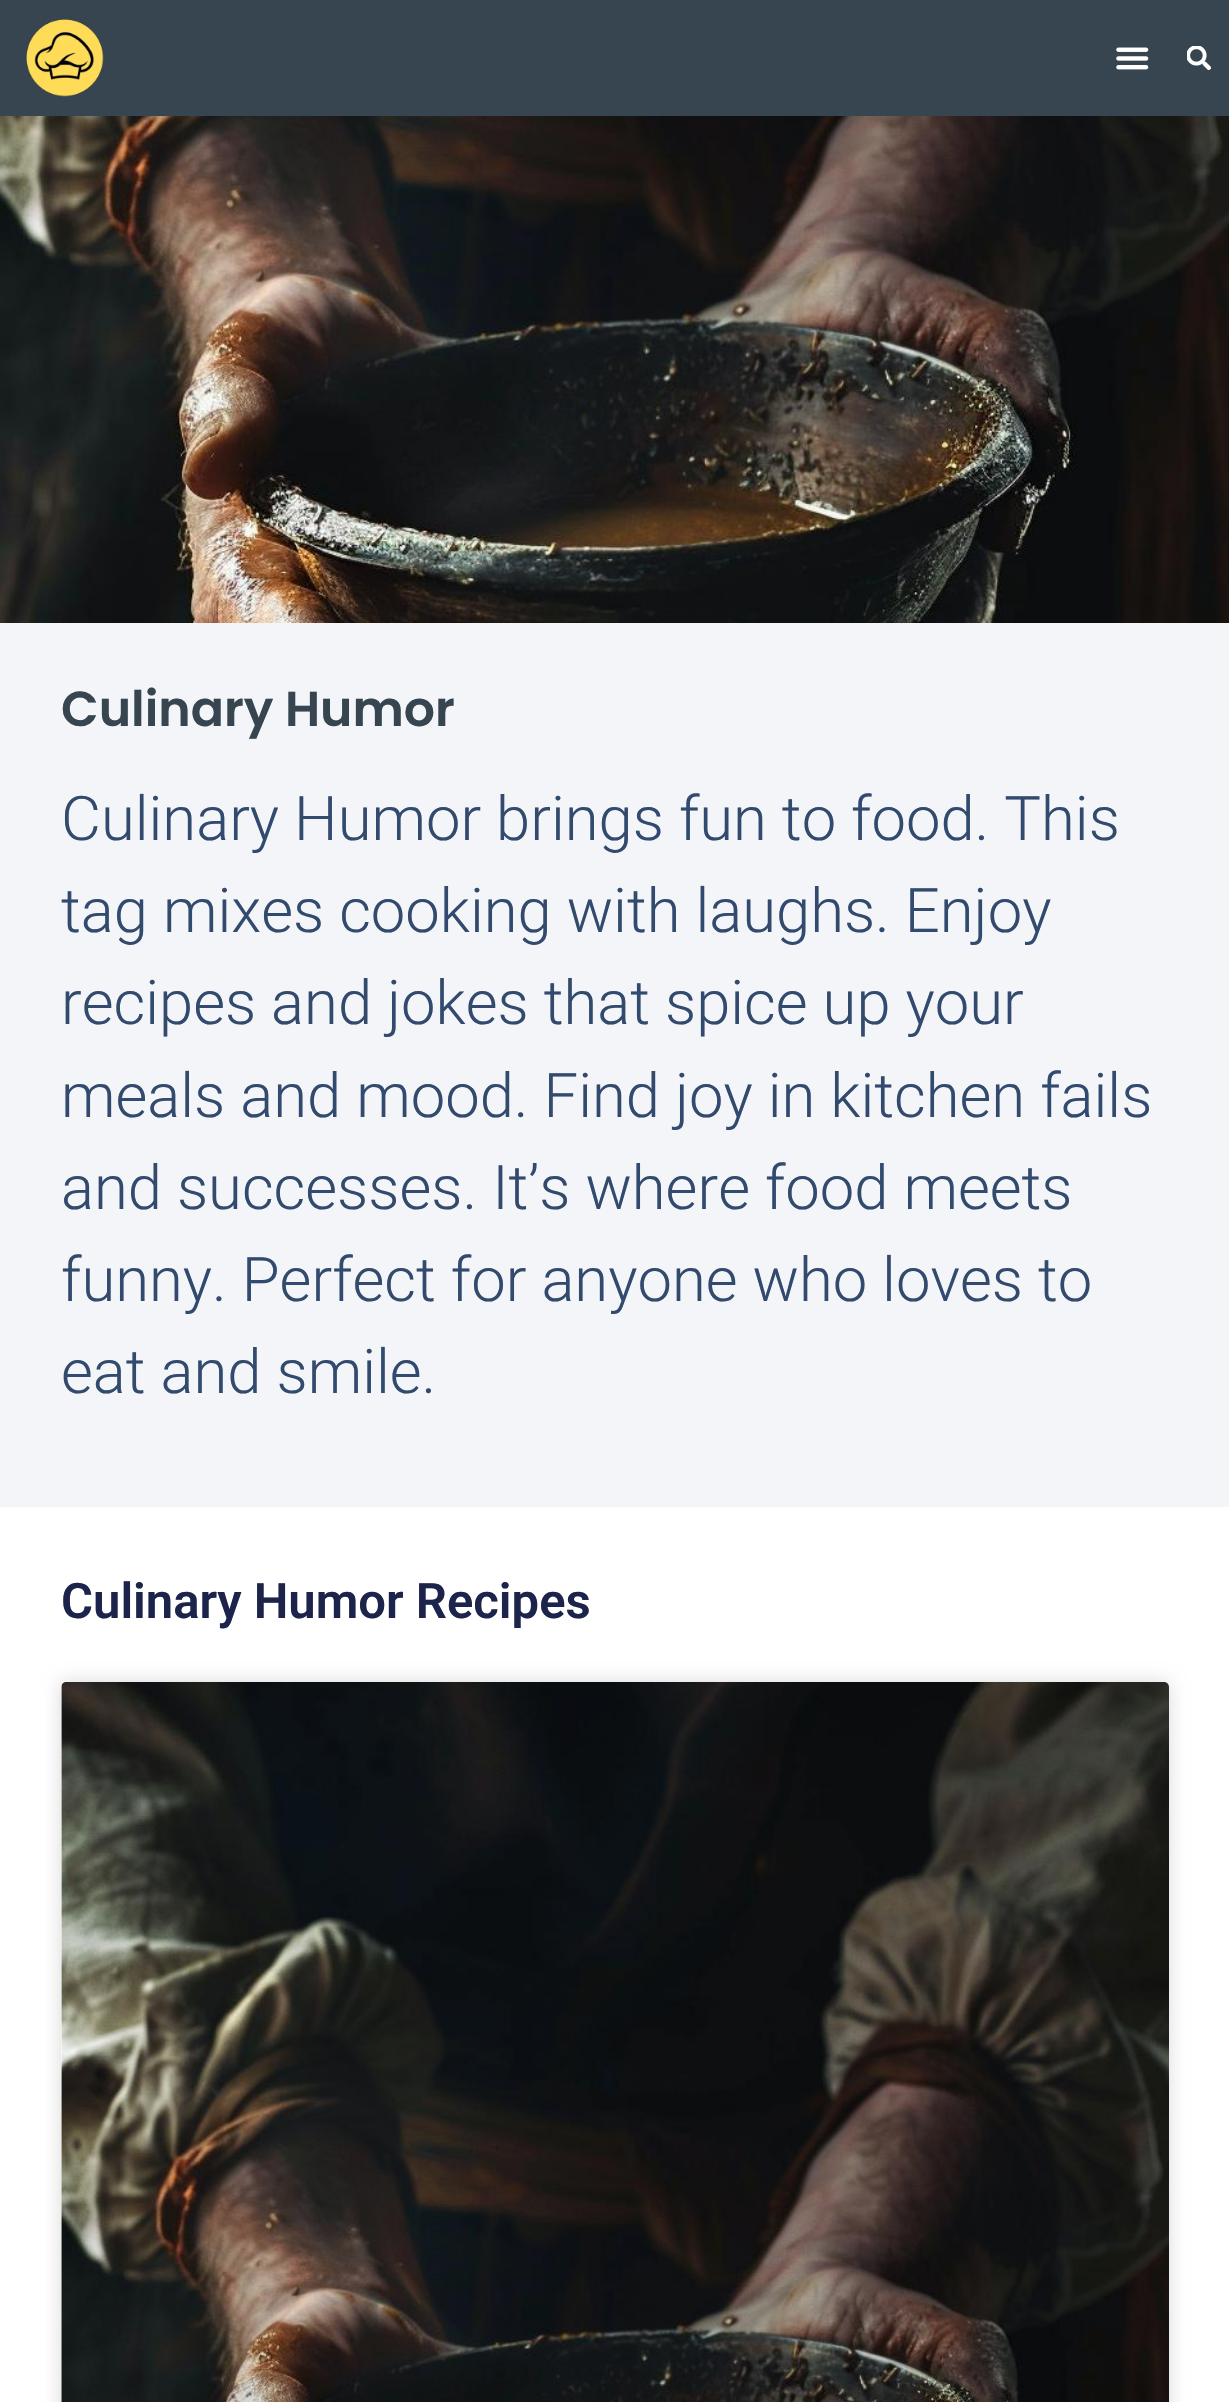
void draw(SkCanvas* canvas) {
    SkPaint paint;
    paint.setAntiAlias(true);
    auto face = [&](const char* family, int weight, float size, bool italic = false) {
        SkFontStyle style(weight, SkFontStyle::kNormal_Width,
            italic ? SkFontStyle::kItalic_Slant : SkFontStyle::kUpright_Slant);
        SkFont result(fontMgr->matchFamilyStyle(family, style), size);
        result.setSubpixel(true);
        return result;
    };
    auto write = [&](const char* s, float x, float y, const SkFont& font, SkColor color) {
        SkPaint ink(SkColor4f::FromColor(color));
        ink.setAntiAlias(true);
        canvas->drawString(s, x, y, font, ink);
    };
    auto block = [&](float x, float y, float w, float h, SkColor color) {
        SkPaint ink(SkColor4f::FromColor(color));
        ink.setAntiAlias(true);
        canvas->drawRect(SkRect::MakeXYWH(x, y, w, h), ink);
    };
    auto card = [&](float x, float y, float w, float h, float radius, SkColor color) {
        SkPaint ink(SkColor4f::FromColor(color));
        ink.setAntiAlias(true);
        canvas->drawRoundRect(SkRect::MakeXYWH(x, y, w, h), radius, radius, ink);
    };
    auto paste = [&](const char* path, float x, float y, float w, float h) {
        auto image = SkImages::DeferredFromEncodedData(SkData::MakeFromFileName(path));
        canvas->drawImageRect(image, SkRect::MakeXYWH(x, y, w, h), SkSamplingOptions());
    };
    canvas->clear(SK_ColorWHITE);
    block(0, 0, 1229, 116, SkColorSetRGB(54, 69, 79));
    paste("pic1.png", 26, 19, 78, 78);
    paste("pic2.png", 1116, 47, 33, 23);
    paste("pic3.png", 1187, 46, 24, 24);
    paste("pic4.png", 0, 116, 1229, 507);
    block(0, 623, 1229, 884, SkColorSetRGB(243, 245, 248));
    auto kFont1 = face("Poppins", 600, 49);
    write("Culinary Humor", 61, 726, kFont1, SkColorSetRGB(54, 69, 79));
    auto kFont2 = face("Roboto", 300, 61.5f);
    write("Culinary Humor brings fun to food. This", 61, 840, kFont2, SkColorSetRGB(50, 74, 109));
    write("tag mixes cooking with laughs. Enjoy", 61, 932, kFont2, SkColorSetRGB(50, 74, 109));
    write("recipes and jokes that spice up your", 61, 1024, kFont2, SkColorSetRGB(50, 74, 109));
    write("meals and mood. Find joy in kitchen fails", 61, 1117, kFont2, SkColorSetRGB(50, 74, 109));
    write("and successes. It’s where food meets", 61, 1209, kFont2, SkColorSetRGB(50, 74, 109));
    write("funny. Perfect for anyone who loves to", 61, 1301, kFont2, SkColorSetRGB(50, 74, 109));
    write("eat and smile.", 61, 1393, kFont2, SkColorSetRGB(50, 74, 109));
    auto kFont3 = face("Roboto", 600, 49);
    write("Culinary Humor Recipes", 61, 1618, kFont3, SkColorSetRGB(28, 36, 75));
    paint.setColor(SkColorSetARGB(38, 0, 0, 0));
    paint.setMaskFilter(SkMaskFilter::MakeBlur(kNormal_SkBlurStyle, 9));
    canvas->drawRoundRect(SkRect::MakeXYWH(61, 1682, 1108, 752), 5, 5, paint);
    paint.setMaskFilter(nullptr);
    card(61, 1682, 1108, 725, 5, SK_ColorWHITE);
    paste("pic5.png", 61, 1682, 1108, 720);
    {
        const SkColor colors[] = {SkColorSetARGB(89, 0, 0, 0), SkColorSetARGB(0, 0, 0, 0)};
        const float stops[] = {0, 0.75f};
        const SkPoint ends[] = {{615, 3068}, {615, 1682}};
        paint.setShader(SkGradientShader::MakeLinear(ends, colors, stops, 2, SkTileMode::kClamp));
        paint.setAlpha(255);
    }
    canvas->drawRect(SkRect::MakeXYWH(61, 2093, 1108, 309), paint);
}
